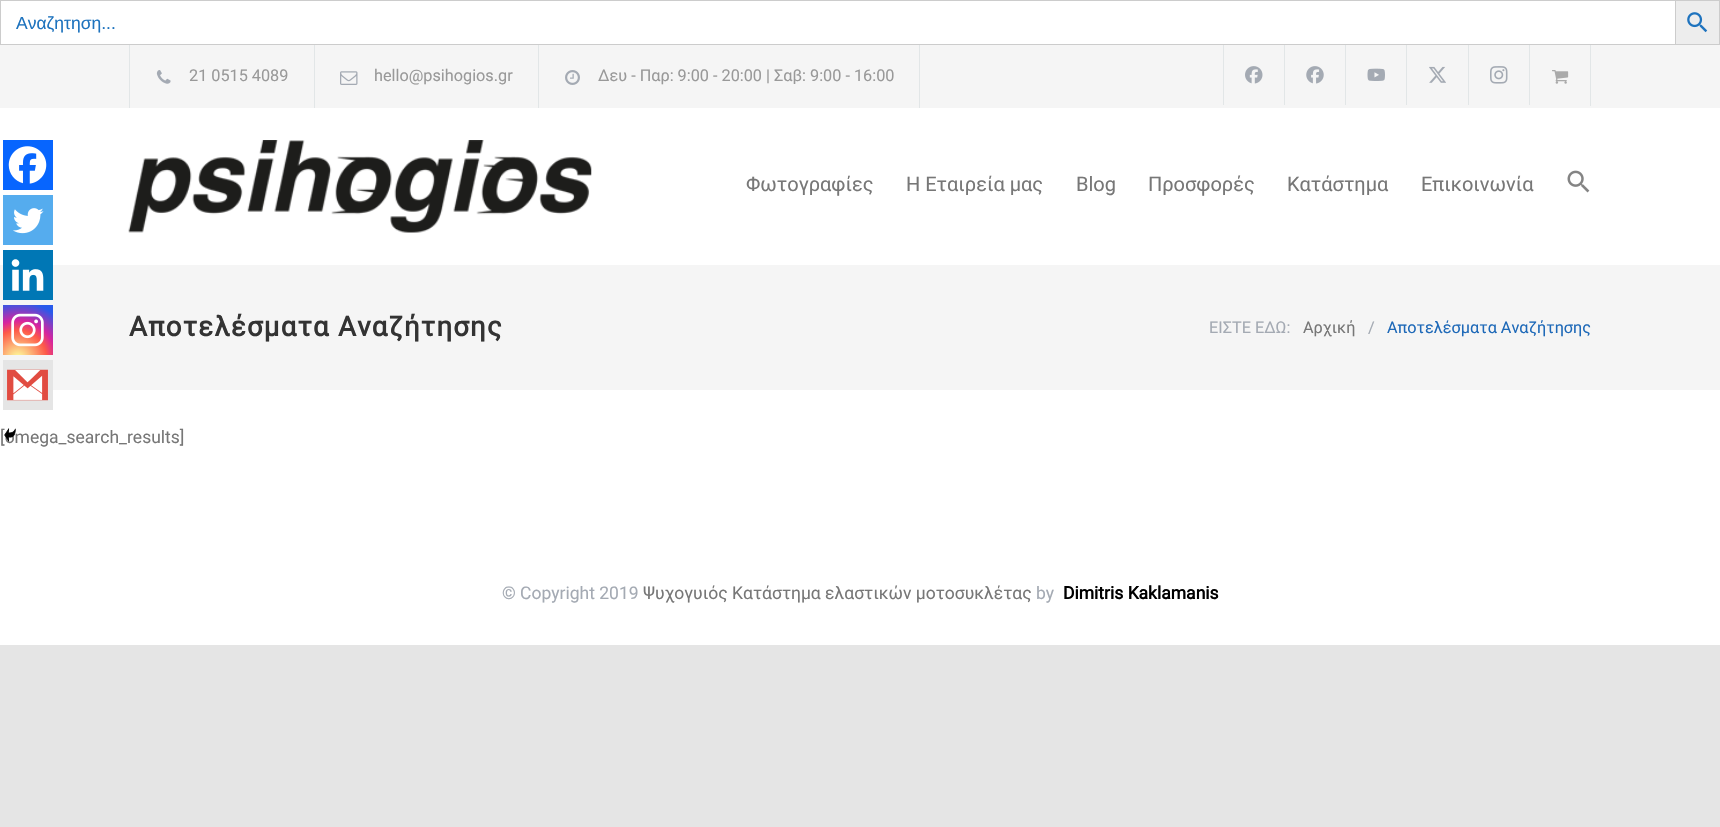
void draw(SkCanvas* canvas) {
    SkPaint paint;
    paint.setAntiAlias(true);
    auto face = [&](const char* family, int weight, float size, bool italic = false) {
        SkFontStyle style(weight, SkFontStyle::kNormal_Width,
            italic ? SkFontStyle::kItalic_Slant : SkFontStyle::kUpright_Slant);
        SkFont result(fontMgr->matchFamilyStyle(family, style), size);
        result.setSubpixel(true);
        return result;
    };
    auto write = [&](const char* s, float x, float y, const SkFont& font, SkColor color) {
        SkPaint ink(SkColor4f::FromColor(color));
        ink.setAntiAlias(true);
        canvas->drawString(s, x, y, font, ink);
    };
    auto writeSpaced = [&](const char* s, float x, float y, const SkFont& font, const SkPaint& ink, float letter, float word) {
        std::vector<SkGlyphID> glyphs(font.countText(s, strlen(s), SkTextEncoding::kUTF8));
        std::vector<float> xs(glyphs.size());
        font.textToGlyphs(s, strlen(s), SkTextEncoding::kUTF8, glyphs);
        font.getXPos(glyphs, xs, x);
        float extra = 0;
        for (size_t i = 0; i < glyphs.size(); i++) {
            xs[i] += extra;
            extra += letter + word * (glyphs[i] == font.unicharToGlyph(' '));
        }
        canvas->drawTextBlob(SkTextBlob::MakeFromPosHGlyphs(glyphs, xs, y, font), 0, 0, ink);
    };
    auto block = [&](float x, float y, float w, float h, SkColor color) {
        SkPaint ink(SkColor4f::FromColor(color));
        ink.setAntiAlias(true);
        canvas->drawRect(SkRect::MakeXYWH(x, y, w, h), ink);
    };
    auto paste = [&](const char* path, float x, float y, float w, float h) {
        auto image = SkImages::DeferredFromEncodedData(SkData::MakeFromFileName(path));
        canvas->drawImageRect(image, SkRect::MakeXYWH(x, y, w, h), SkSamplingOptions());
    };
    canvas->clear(SkColorSetRGB(229, 229, 229));
    block(1, 1, 1674, 43, SK_ColorWHITE);
    block(0, 0, 1675, 1, SkColorSetRGB(204, 204, 204));
    block(0, 44, 1675, 1, SkColorSetRGB(204, 204, 204));
    block(0, 0, 1, 45, SkColorSetRGB(204, 204, 204));
    auto kFont1 = face("Liberation Sans", 400, 17.5f);
    write("Αναζητηση...", 16, 29, kFont1, SkColorSetRGB(30, 115, 190));
    paint.setColor(SkColorSetRGB(237, 237, 237));
    canvas->drawRect(SkRect::MakeXYWH(1675.5f, 0.5f, 44, 44), paint);
    paint.setStyle(SkPaint::kStroke_Style);
    paint.setStrokeWidth(1);
    paint.setColor(SkColorSetRGB(204, 204, 204));
    canvas->drawRect(SkRect::MakeXYWH(1675.5f, 0.5f, 44, 44), paint);
    paste("pic1.png", 1687, 12, 21, 21);
    block(0, 108, 1720, 537, SK_ColorWHITE);
    block(0, 45, 1720, 63, SkColorSetRGB(245, 245, 245));
    block(314, 45, 1, 63, SkColorSetRGB(226, 230, 231));
    block(129, 45, 1, 63, SkColorSetRGB(226, 230, 231));
    paste("pic2.png", 156, 70, 15, 14);
    auto kFont2 = face("Roboto", 400, 16.25f);
    write("21 0515 4089", 189, 81, kFont2, SkColorSetRGB(153, 153, 153));
    block(538, 45, 1, 63, SkColorSetRGB(226, 230, 231));
    paste("pic3.png", 340, 71, 18, 14);
    write("hello@psihogios.gr", 374, 81, kFont2, SkColorSetRGB(153, 153, 153));
    block(919, 45, 1, 63, SkColorSetRGB(226, 230, 231));
    paste("pic4.png", 565, 70, 15, 15);
    write("Δευ - Παρ: 9:00 - 20:00 | Σαβ: 9:00 - 16:00", 598, 81, kFont2, SkColorSetRGB(153, 153, 153));
    block(1284, 45, 1, 60, SkColorSetRGB(226, 230, 231));
    block(1223, 45, 1, 60, SkColorSetRGB(226, 230, 231));
    paste("pic5.png", 1245, 66, 18, 18);
    block(1345, 45, 1, 60, SkColorSetRGB(226, 230, 231));
    paste("pic6.png", 1306, 66, 18, 18);
    block(1406, 45, 1, 60, SkColorSetRGB(226, 230, 231));
    paste("pic7.png", 1367, 68, 18, 13);
    block(1468, 45, 1, 60, SkColorSetRGB(226, 230, 231));
    paste("pic8.png", 1429, 66, 17, 17);
    block(1529, 45, 1, 60, SkColorSetRGB(226, 230, 231));
    paste("pic9.png", 1490, 66, 18, 18);
    block(1590, 45, 1, 61, SkColorSetRGB(226, 230, 231));
    paste("pic10.png", 1552, 70, 17, 14);
    paste("pic11.png", 128, 140, 464, 93);
    auto kFont3 = face("Roboto", 400, 20);
    write("Φωτογραφίες", 746, 191, kFont3, SkColorSetRGB(119, 119, 119));
    write("Η Εταιρεία μας", 906, 191, kFont3, SkColorSetRGB(119, 119, 119));
    write("Blog", 1076, 191, kFont3, SkColorSetRGB(119, 119, 119));
    write("Προσφορές", 1148, 191, kFont3, SkColorSetRGB(119, 119, 119));
    write("Κατάστημα", 1287, 191, kFont3, SkColorSetRGB(119, 119, 119));
    write("Επικοινωνία", 1421, 191, kFont3, SkColorSetRGB(119, 119, 119));
    paste("pic12.png", 1567, 170, 23, 23);
    block(0, 265, 1720, 125, SkColorSetRGB(245, 245, 245));
    auto kFont4 = face("Roboto", 700, 27.5f);
    paint.setStyle(SkPaint::kFill_Style);
    paint.setColor(SkColorSetRGB(51, 51, 51));
    writeSpaced("Αποτελέσματα Αναζήτησης", 129, 336, kFont4, paint, 1.25f, 0);
    write("ΕΙΣΤΕ ΕΔΩ:", 1209, 333, kFont2, SkColorSetRGB(164, 170, 179));
    write("Αρχική", 1303, 333, kFont2, SkColorSetRGB(119, 119, 119));
    write("/", 1368, 333, kFont2, SkColorSetRGB(164, 170, 179));
    write("Αποτελέσματα Αναζήτησης", 1387, 333, kFont2, SkColorSetRGB(30, 105, 184));
    block(3, 140, 50, 50, SkColorSetRGB(7, 101, 254));
    paste("pic13.png", 8, 146, 39, 38);
    block(3, 195, 50, 50, SkColorSetRGB(85, 172, 238));
    paste("pic14.png", 13, 208, 31, 26);
    block(3, 250, 50, 50, SkColorSetRGB(0, 119, 181));
    paste("pic15.png", 11, 259, 33, 32);
    {
        const SkColor colors[] = {SkColorSetRGB(253, 244, 151), SkColorSetRGB(253, 244, 151), SkColorSetRGB(253, 89, 73), SkColorSetRGB(214, 36, 159), SkColorSetRGB(40, 90, 235)};
        const float stops[] = {0, 0.05f, 0.45f, 0.6f, 0.9f};
        paint.setShader(SkGradientShader::MakeRadial({18, 359}, 64, colors, stops, 5, SkTileMode::kClamp));
        paint.setAlpha(255);
    }
    canvas->drawRect(SkRect::MakeXYWH(3, 305, 50, 50), paint);
    paste("pic16.png", 11, 313, 33, 34);
    block(3, 360, 50, 50, SkColorSetRGB(229, 229, 229));
    paste("pic17.png", 7, 369, 41, 32);
    auto kFont5 = face("Roboto", 400, 17.5f);
    write("[omega_search_results]", 0, 443, kFont5, SkColorSetRGB(119, 119, 119));
    paste("pic18.png", 4, 428, 12, 14);
    write("© Copyright 2019", 502, 599, kFont5, SkColorSetRGB(164, 170, 179));
    write("Ψυχογυιός Κατάστημα ελαστικών μοτοσυκλέτας", 643, 599, kFont5, SkColorSetRGB(119, 119, 119));
    write("by", 1036, 599, kFont5, SkColorSetRGB(164, 170, 179));
    auto kFont6 = face("Roboto", 700, 17.5f);
    write("Dimitris Kaklamanis", 1063, 599, kFont6, SK_ColorBLACK);
}
